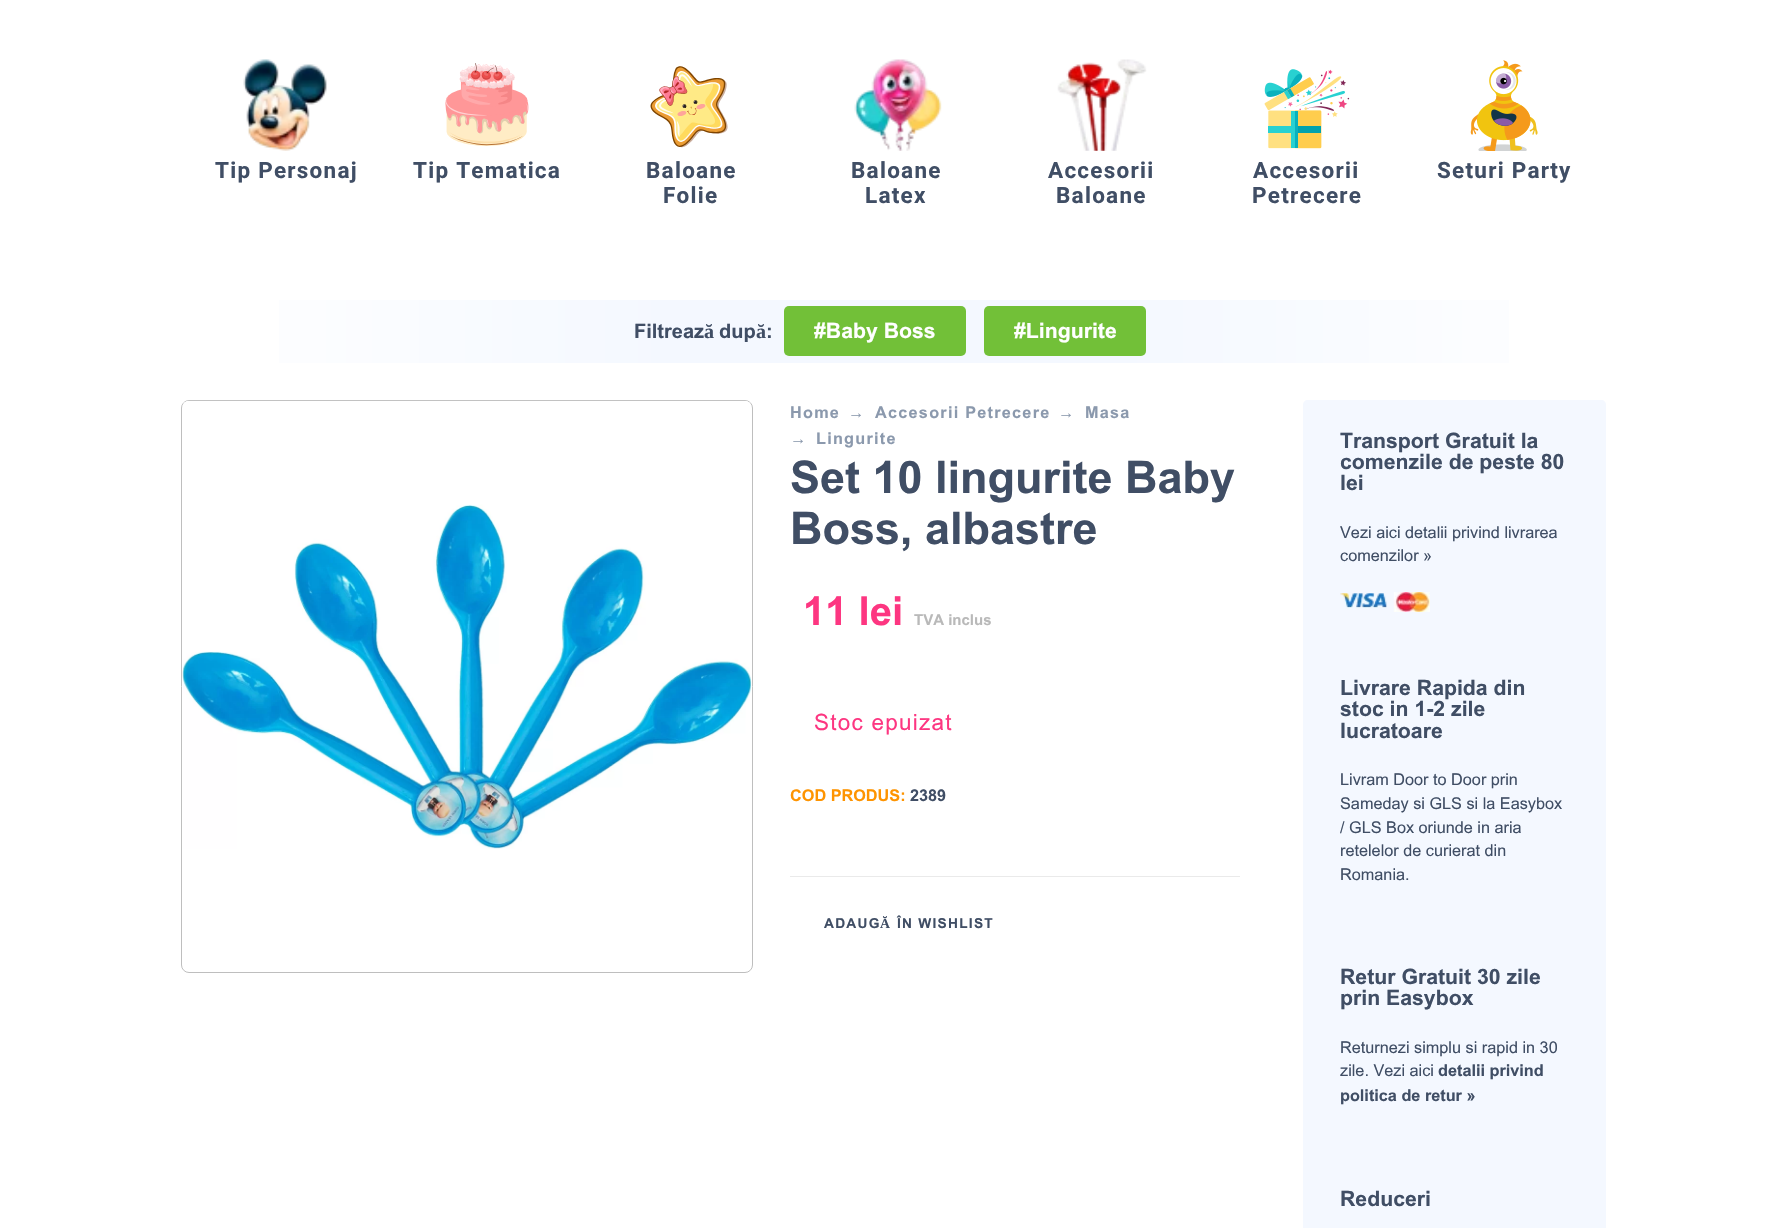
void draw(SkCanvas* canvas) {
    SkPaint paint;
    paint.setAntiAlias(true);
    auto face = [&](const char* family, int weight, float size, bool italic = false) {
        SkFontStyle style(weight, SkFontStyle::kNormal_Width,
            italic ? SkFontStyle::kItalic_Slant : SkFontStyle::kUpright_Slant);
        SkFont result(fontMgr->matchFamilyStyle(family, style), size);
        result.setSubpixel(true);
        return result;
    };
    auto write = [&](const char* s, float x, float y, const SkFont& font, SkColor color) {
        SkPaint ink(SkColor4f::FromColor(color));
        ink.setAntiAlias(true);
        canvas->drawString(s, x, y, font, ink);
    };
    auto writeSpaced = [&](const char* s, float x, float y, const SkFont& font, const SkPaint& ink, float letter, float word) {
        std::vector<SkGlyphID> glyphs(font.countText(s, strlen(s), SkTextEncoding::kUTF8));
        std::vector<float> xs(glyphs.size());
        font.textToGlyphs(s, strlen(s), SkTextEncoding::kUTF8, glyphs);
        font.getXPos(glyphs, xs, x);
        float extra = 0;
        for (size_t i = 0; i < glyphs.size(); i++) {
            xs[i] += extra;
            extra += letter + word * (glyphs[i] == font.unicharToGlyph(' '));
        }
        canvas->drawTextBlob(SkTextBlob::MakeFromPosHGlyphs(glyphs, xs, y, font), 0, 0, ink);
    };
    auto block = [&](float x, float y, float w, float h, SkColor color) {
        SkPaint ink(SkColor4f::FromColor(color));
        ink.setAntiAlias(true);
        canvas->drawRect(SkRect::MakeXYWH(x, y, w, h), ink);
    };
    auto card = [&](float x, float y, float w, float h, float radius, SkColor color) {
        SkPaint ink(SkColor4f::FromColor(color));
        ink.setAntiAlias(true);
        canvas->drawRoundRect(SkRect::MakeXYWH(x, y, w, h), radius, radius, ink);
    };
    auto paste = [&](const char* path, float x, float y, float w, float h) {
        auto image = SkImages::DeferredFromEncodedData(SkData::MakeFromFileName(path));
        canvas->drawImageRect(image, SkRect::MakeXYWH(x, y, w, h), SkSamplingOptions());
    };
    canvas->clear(SK_ColorWHITE);
    paste("pic1.png", 243, 59, 84, 92);
    auto kFont1 = face("Roboto", 700, 22.5f);
    paint.setColor(SkColorSetRGB(64, 78, 101));
    writeSpaced("Tip Personaj", 215, 178, kFont1, paint, 1.25f, 0);
    paste("pic2.png", 445, 63, 84, 83);
    writeSpaced("Tip Tematica", 413, 178, kFont1, paint, 1.25f, 0);
    paste("pic3.png", 650, 66, 78, 82);
    writeSpaced("Baloane", 646, 178, kFont1, paint, 1.25f, 0);
    writeSpaced("Folie", 663, 203, kFont1, paint, 1.25f, 0);
    paste("pic4.png", 854, 59, 88, 92);
    writeSpaced("Baloane", 851, 178, kFont1, paint, 1.25f, 0);
    writeSpaced("Latex", 865, 203, kFont1, paint, 1.25f, 0);
    paste("pic5.png", 1057, 59, 90, 92);
    writeSpaced("Accesorii", 1048, 178, kFont1, paint, 1.25f, 0);
    writeSpaced("Baloane", 1056, 203, kFont1, paint, 1.25f, 0);
    paste("pic6.png", 1264, 69, 86, 80);
    writeSpaced("Accesorii", 1253, 178, kFont1, paint, 1.25f, 0);
    writeSpaced("Petrecere", 1252, 203, kFont1, paint, 1.25f, 0);
    paste("pic7.png", 1470, 60, 68, 91);
    writeSpaced("Seturi Party", 1437, 178, kFont1, paint, 1.25f, 0);
    {
        const SkColor colors[] = {SK_ColorWHITE, SkColorSetRGB(244, 248, 255), SkColorSetRGB(244, 248, 255), SK_ColorWHITE};
        const float stops[] = {0, 0.35f, 0.65f, 1};
        const SkPoint ends[] = {{163, 331}, {1625, 331}};
        paint.setShader(SkGradientShader::MakeLinear(ends, colors, stops, 4, SkTileMode::kClamp));
        paint.setAlpha(255);
    }
    canvas->drawRect(SkRect::MakeXYWH(279, 300, 1230, 63), paint);
    auto kFont2 = face("Arial", 700, 20);
    write("Filtreaz", 634, 338, kFont2, SkColorSetRGB(64, 78, 101));
    auto kFont3 = face("Liberation Serif", 700, 20);
    write("ă", 704, 338, kFont3, SkColorSetRGB(64, 78, 101));
    write("dup", 719, 338, kFont2, SkColorSetRGB(64, 78, 101));
    write("ă", 756, 338, kFont3, SkColorSetRGB(64, 78, 101));
    write(":", 766, 338, kFont2, SkColorSetRGB(64, 78, 101));
    card(784, 306, 182, 50, 5, SkColorSetRGB(114, 192, 56));
    auto kFont4 = face("Arial", 700, 21.25f);
    write("#Baby Boss", 814, 338, kFont4, SK_ColorWHITE);
    card(984, 306, 162, 50, 5, SkColorSetRGB(114, 192, 56));
    write("#Lingurite", 1014, 338, kFont4, SK_ColorWHITE);
    paint.setStyle(SkPaint::kStroke_Style);
    paint.setStrokeWidth(1);
    paint.setShader(nullptr);
    paint.setColor(SkColorSetRGB(190, 190, 190));
    canvas->drawRoundRect(SkRect::MakeXYWH(181.5f, 400.5f, 571, 572), 7.5f, 7.5f, paint);
    paste("pic8.png", 182, 400, 570, 449);
    auto kFont5 = face("Arial", 700, 16.25f);
    paint.setStyle(SkPaint::kFill_Style);
    paint.setColor(SkColorSetRGB(139, 153, 173));
    writeSpaced("Home", 790, 418, kFont5, paint, 1.25f, 0);
    auto kFont6 = face("Liberation Serif", 700, 16.25f);
    writeSpaced("→", 848, 418, kFont6, paint, 1.25f, 0);
    writeSpaced("Accesorii Petrecere", 875, 418, kFont5, paint, 1.25f, 0);
    writeSpaced("→", 1058, 418, kFont6, paint, 1.25f, 0);
    writeSpaced("Masa", 1085, 418, kFont5, paint, 1.25f, 0);
    writeSpaced("→", 790, 444, kFont6, paint, 1.25f, 0);
    writeSpaced("Lingurite", 816, 444, kFont5, paint, 1.25f, 0);
    auto kFont7 = face("Arial", 700, 45);
    write("Set 10 lingurite Baby", 790, 493, kFont7, SkColorSetRGB(64, 78, 101));
    write("Boss, albastre", 790, 544, kFont7, SkColorSetRGB(64, 78, 101));
    auto kFont8 = face("Arial", 700, 40);
    write("11 lei", 803, 625, kFont8, SkColorSetRGB(253, 54, 129));
    auto kFont9 = face("Arial", 700, 15);
    write("TVA inclus", 914, 625, kFont9, SkColorSetRGB(185, 185, 185));
    auto kFont10 = face("Arial", 400, 22.5f);
    paint.setColor(SkColorSetRGB(253, 54, 129));
    writeSpaced("Stoc epuizat", 814, 730, kFont10, paint, 1.25f, 0);
    write("COD PRODUS:", 790, 801, kFont5, SkColorSetRGB(254, 148, 1));
    write("2389", 910, 801, kFont5, SkColorSetRGB(64, 78, 101));
    block(790, 876, 450, 1, SkColorSetRGB(234, 234, 234));
    auto kFont11 = face("Arial", 700, 13.75f);
    paint.setColor(SkColorSetRGB(64, 78, 101));
    writeSpaced("ADAUG", 824, 928, kFont11, paint, 1.25f, 0);
    auto kFont12 = face("Liberation Serif", 700, 13.75f);
    writeSpaced("Ă", 880, 928, kFont12, paint, 1.25f, 0);
    writeSpaced("ÎN WISHLIST", 897, 928, kFont11, paint, 1.25f, 0);
    paint.setColor(SkColorSetRGB(244, 248, 255));
    canvas->drawPath(SkPathBuilder().moveTo(1308, 400).lineTo(1601, 400).cubicTo(1604, 400, 1606, 402, 1606, 405).lineTo(1606, 648).lineTo(1303, 648).lineTo(1303, 405).cubicTo(1303, 402, 1305, 400, 1308, 400).close().detach(), paint);
    write("Transport Gratuit la", 1340, 448, kFont4, SkColorSetRGB(64, 78, 101));
    write("comenzile de peste 80", 1340, 469, kFont4, SkColorSetRGB(64, 78, 101));
    write("lei", 1340, 490, kFont4, SkColorSetRGB(64, 78, 101));
    auto kFont13 = face("Arial", 400, 16.25f);
    write("Vezi aici detalii privind livrarea", 1340, 538, kFont13, SkColorSetRGB(64, 78, 101));
    write("comenzilor »", 1340, 561, kFont13, SkColorSetRGB(64, 78, 101));
    paste("pic9.png", 1340, 592, 90, 20);
    block(1303, 648, 303, 580, SkColorSetRGB(244, 248, 255));
    write("Livrare Rapida din", 1340, 695, kFont4, SkColorSetRGB(64, 78, 101));
    write("stoc in 1-2 zile", 1340, 716, kFont4, SkColorSetRGB(64, 78, 101));
    write("lucratoare", 1340, 738, kFont4, SkColorSetRGB(64, 78, 101));
    write("Livram Door to Door prin", 1340, 785, kFont13, SkColorSetRGB(64, 78, 101));
    write("Sameday si GLS si la Easybox", 1340, 809, kFont13, SkColorSetRGB(64, 78, 101));
    write("/ GLS Box oriunde in aria", 1340, 833, kFont13, SkColorSetRGB(64, 78, 101));
    write("retelelor de curierat din", 1340, 856, kFont13, SkColorSetRGB(64, 78, 101));
    write("Romania.", 1340, 880, kFont13, SkColorSetRGB(64, 78, 101));
    write("Retur Gratuit 30 zile", 1340, 984, kFont4, SkColorSetRGB(64, 78, 101));
    write("prin Easybox", 1340, 1005, kFont4, SkColorSetRGB(64, 78, 101));
    write("Returnezi simplu si rapid in 30", 1340, 1053, kFont13, SkColorSetRGB(64, 78, 101));
    write("zile. Vezi aici", 1340, 1076, kFont13, SkColorSetRGB(64, 78, 101));
    write("detalii privind", 1438, 1076, kFont5, SkColorSetRGB(64, 78, 101));
    write("politica de retur »", 1340, 1101, kFont5, SkColorSetRGB(64, 78, 101));
    write("Reduceri", 1340, 1206, kFont4, SkColorSetRGB(64, 78, 101));
}
